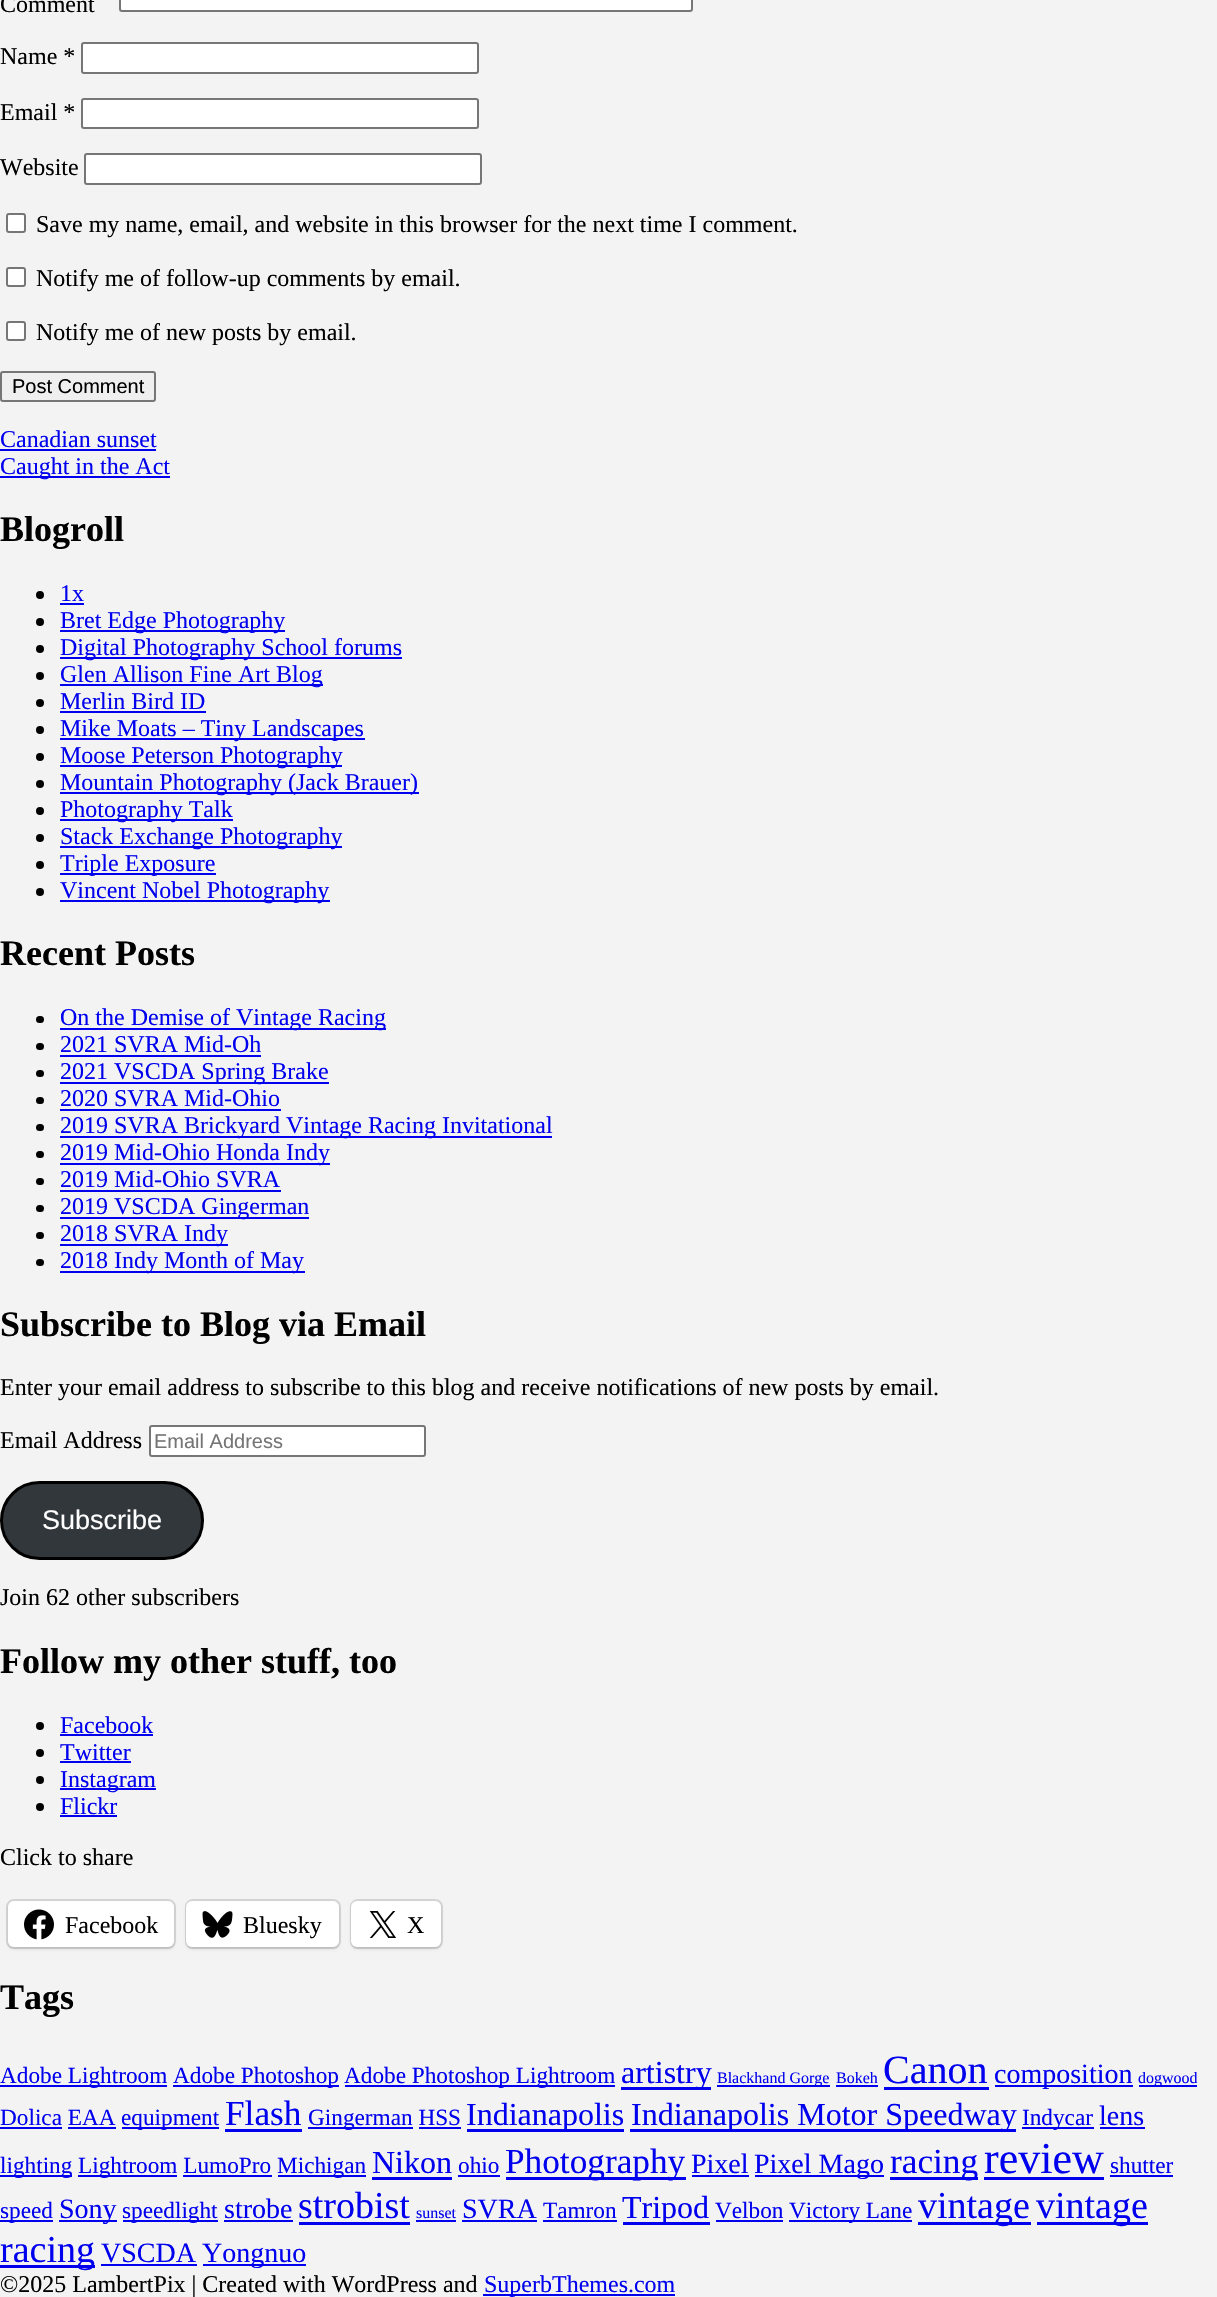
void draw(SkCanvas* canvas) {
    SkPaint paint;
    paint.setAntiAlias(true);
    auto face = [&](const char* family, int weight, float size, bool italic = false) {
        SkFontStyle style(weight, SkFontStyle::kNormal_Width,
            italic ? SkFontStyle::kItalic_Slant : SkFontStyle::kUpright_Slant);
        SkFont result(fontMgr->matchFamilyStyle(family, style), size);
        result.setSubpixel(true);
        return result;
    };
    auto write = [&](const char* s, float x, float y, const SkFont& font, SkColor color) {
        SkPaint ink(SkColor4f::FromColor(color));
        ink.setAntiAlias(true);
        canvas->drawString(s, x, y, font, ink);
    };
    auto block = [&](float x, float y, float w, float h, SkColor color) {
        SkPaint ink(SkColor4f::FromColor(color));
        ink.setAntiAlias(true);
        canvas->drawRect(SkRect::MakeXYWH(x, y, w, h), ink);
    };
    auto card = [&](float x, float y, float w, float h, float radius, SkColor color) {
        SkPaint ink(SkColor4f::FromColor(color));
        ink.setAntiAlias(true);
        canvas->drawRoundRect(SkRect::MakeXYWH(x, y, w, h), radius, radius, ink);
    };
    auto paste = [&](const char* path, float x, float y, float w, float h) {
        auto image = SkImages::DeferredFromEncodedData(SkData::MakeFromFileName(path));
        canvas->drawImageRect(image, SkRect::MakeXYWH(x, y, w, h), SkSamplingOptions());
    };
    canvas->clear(SkColorSetRGB(243, 243, 243));
    auto kFont1 = face("Liberation Serif", 400, 24);
    write("Comment", 0, 12, kFont1, SK_ColorBLACK);
    paint.setColor(SK_ColorWHITE);
    canvas->drawRoundRect(SkRect::MakeXYWH(120, -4, 572, 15), 2, 2, paint);
    paint.setStyle(SkPaint::kStroke_Style);
    paint.setStrokeWidth(2);
    paint.setColor(SkColorSetRGB(118, 118, 118));
    canvas->drawRoundRect(SkRect::MakeXYWH(120, -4, 572, 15), 2, 2, paint);
    write("Name *", 0, 64, kFont1, SK_ColorBLACK);
    paint.setStyle(SkPaint::kFill_Style);
    paint.setColor(SK_ColorWHITE);
    canvas->drawRoundRect(SkRect::MakeXYWH(82, 43, 396, 30), 2, 2, paint);
    paint.setStyle(SkPaint::kStroke_Style);
    paint.setColor(SkColorSetRGB(118, 118, 118));
    canvas->drawRoundRect(SkRect::MakeXYWH(82, 43, 396, 30), 2, 2, paint);
    write("Email *", 0, 120, kFont1, SK_ColorBLACK);
    paint.setStyle(SkPaint::kFill_Style);
    paint.setColor(SK_ColorWHITE);
    canvas->drawRoundRect(SkRect::MakeXYWH(82, 99, 396, 29), 2, 2, paint);
    paint.setStyle(SkPaint::kStroke_Style);
    paint.setColor(SkColorSetRGB(118, 118, 118));
    canvas->drawRoundRect(SkRect::MakeXYWH(82, 99, 396, 29), 2, 2, paint);
    write("Website", 0, 175, kFont1, SK_ColorBLACK);
    paint.setStyle(SkPaint::kFill_Style);
    paint.setColor(SK_ColorWHITE);
    canvas->drawRoundRect(SkRect::MakeXYWH(85, 154, 396, 30), 2, 2, paint);
    paint.setStyle(SkPaint::kStroke_Style);
    paint.setColor(SkColorSetRGB(118, 118, 118));
    canvas->drawRoundRect(SkRect::MakeXYWH(85, 154, 396, 30), 2, 2, paint);
    paint.setStyle(SkPaint::kFill_Style);
    paint.setColor(SK_ColorWHITE);
    canvas->drawRoundRect(SkRect::MakeXYWH(7, 214, 18, 18), 2, 2, paint);
    paint.setStyle(SkPaint::kStroke_Style);
    paint.setColor(SkColorSetRGB(118, 118, 118));
    canvas->drawRoundRect(SkRect::MakeXYWH(7, 214, 18, 18), 2, 2, paint);
    write("Save my name, email, and website in this browser for the next time I comment.", 36, 232, kFont1, SK_ColorBLACK);
    paint.setStyle(SkPaint::kFill_Style);
    paint.setColor(SK_ColorWHITE);
    canvas->drawRoundRect(SkRect::MakeXYWH(7, 268, 18, 18), 2, 2, paint);
    paint.setStyle(SkPaint::kStroke_Style);
    paint.setColor(SkColorSetRGB(118, 118, 118));
    canvas->drawRoundRect(SkRect::MakeXYWH(7, 268, 18, 18), 2, 2, paint);
    write("Notify me of follow-up comments by email.", 36, 286, kFont1, SK_ColorBLACK);
    paint.setStyle(SkPaint::kFill_Style);
    paint.setColor(SK_ColorWHITE);
    canvas->drawRoundRect(SkRect::MakeXYWH(7, 322, 18, 18), 2, 2, paint);
    paint.setStyle(SkPaint::kStroke_Style);
    paint.setColor(SkColorSetRGB(118, 118, 118));
    canvas->drawRoundRect(SkRect::MakeXYWH(7, 322, 18, 18), 2, 2, paint);
    write("Notify me of new posts by email.", 36, 340, kFont1, SK_ColorBLACK);
    paint.setStyle(SkPaint::kFill_Style);
    paint.setColor(SkColorSetRGB(239, 239, 239));
    canvas->drawRoundRect(SkRect::MakeXYWH(1, 372, 154, 29), 2, 2, paint);
    paint.setStyle(SkPaint::kStroke_Style);
    paint.setColor(SkColorSetRGB(118, 118, 118));
    canvas->drawRoundRect(SkRect::MakeXYWH(1, 372, 154, 29), 2, 2, paint);
    auto kFont2 = face("Liberation Sans", 400, 20);
    write("Post Comment", 12, 393, kFont2, SK_ColorBLACK);
    write("Canadian sunset", 0, 447, kFont1, SkColorSetRGB(0, 0, 238));
    block(0, 449, 156, 2, SkColorSetRGB(0, 0, 238));
    block(0, 476, 170, 2, SkColorSetRGB(0, 0, 238));
    write("Caught in the Act", 0, 474, kFont1, SkColorSetRGB(0, 0, 238));
    auto kFont3 = face("Liberation Serif", 700, 36);
    write("Blogroll", 0, 541, kFont3, SK_ColorBLACK);
    paint.setStyle(SkPaint::kFill_Style);
    paint.setColor(SK_ColorBLACK);
    canvas->drawCircle(40, 595, 4, paint);
    write("1x", 60, 601, kFont1, SkColorSetRGB(0, 0, 238));
    block(60, 603, 24, 2, SkColorSetRGB(0, 0, 238));
    canvas->drawCircle(40, 622, 4, paint);
    block(60, 630, 225, 2, SkColorSetRGB(0, 0, 238));
    write("Bret Edge Photography", 60, 628, kFont1, SkColorSetRGB(0, 0, 238));
    canvas->drawCircle(40, 649, 4, paint);
    block(60, 657, 342, 2, SkColorSetRGB(0, 0, 238));
    write("Digital Photography School forums", 60, 655, kFont1, SkColorSetRGB(0, 0, 238));
    canvas->drawCircle(40, 676, 4, paint);
    block(60, 684, 263, 2, SkColorSetRGB(0, 0, 238));
    write("Glen Allison Fine Art Blog", 60, 682, kFont1, SkColorSetRGB(0, 0, 238));
    canvas->drawCircle(40, 703, 4, paint);
    write("Merlin Bird ID", 60, 709, kFont1, SkColorSetRGB(0, 0, 238));
    block(60, 711, 146, 2, SkColorSetRGB(0, 0, 238));
    canvas->drawCircle(40, 730, 4, paint);
    block(60, 738, 305, 2, SkColorSetRGB(0, 0, 238));
    write("Mike Moats – Tiny Landscapes", 60, 736, kFont1, SkColorSetRGB(0, 0, 238));
    canvas->drawCircle(40, 757, 4, paint);
    block(60, 765, 282, 2, SkColorSetRGB(0, 0, 238));
    write("Moose Peterson Photography", 60, 763, kFont1, SkColorSetRGB(0, 0, 238));
    canvas->drawCircle(40, 784, 4, paint);
    block(60, 792, 359, 2, SkColorSetRGB(0, 0, 238));
    write("Mountain Photography (Jack Brauer)", 60, 790, kFont1, SkColorSetRGB(0, 0, 238));
    canvas->drawCircle(40, 811, 4, paint);
    block(60, 819, 173, 2, SkColorSetRGB(0, 0, 238));
    write("Photography Talk", 60, 817, kFont1, SkColorSetRGB(0, 0, 238));
    canvas->drawCircle(40, 838, 4, paint);
    block(60, 846, 282, 2, SkColorSetRGB(0, 0, 238));
    write("Stack Exchange Photography", 60, 844, kFont1, SkColorSetRGB(0, 0, 238));
    canvas->drawCircle(40, 865, 4, paint);
    block(60, 873, 156, 2, SkColorSetRGB(0, 0, 238));
    write("Triple Exposure", 60, 871, kFont1, SkColorSetRGB(0, 0, 238));
    canvas->drawCircle(40, 892, 4, paint);
    block(60, 900, 270, 2, SkColorSetRGB(0, 0, 238));
    write("Vincent Nobel Photography", 60, 898, kFont1, SkColorSetRGB(0, 0, 238));
    write("Recent Posts", 0, 965, kFont3, SK_ColorBLACK);
    card(36, 1016, 8, 7, 3.5f, SK_ColorBLACK);
    block(60, 1028, 326, 2, SkColorSetRGB(0, 0, 238));
    write("On the Demise of Vintage Racing", 60, 1025, kFont1, SkColorSetRGB(0, 0, 238));
    card(36, 1043, 8, 7, 3.5f, SK_ColorBLACK);
    write("2021 SVRA Mid-Oh", 60, 1052, kFont1, SkColorSetRGB(0, 0, 238));
    block(60, 1055, 201, 2, SkColorSetRGB(0, 0, 238));
    card(36, 1070, 8, 7, 3.5f, SK_ColorBLACK);
    block(60, 1082, 269, 2, SkColorSetRGB(0, 0, 238));
    write("2021 VSCDA Spring Brake", 60, 1079, kFont1, SkColorSetRGB(0, 0, 238));
    card(36, 1097, 8, 7, 3.5f, SK_ColorBLACK);
    write("2020 SVRA Mid-Ohio", 60, 1106, kFont1, SkColorSetRGB(0, 0, 238));
    block(60, 1109, 221, 2, SkColorSetRGB(0, 0, 238));
    card(36, 1124, 8, 7, 3.5f, SK_ColorBLACK);
    block(60, 1136, 492, 2, SkColorSetRGB(0, 0, 238));
    write("2019 SVRA Brickyard Vintage Racing Invitational", 60, 1133, kFont1, SkColorSetRGB(0, 0, 238));
    card(36, 1151, 8, 7, 3.5f, SK_ColorBLACK);
    block(60, 1163, 270, 2, SkColorSetRGB(0, 0, 238));
    write("2019 Mid-Ohio Honda Indy", 60, 1160, kFont1, SkColorSetRGB(0, 0, 238));
    card(36, 1178, 8, 7, 3.5f, SK_ColorBLACK);
    write("2019 Mid-Ohio SVRA", 60, 1187, kFont1, SkColorSetRGB(0, 0, 238));
    block(60, 1190, 221, 2, SkColorSetRGB(0, 0, 238));
    card(36, 1205, 8, 7, 3.5f, SK_ColorBLACK);
    block(60, 1217, 249, 2, SkColorSetRGB(0, 0, 238));
    write("2019 VSCDA Gingerman", 60, 1214, kFont1, SkColorSetRGB(0, 0, 238));
    card(36, 1232, 8, 7, 3.5f, SK_ColorBLACK);
    block(60, 1244, 168, 2, SkColorSetRGB(0, 0, 238));
    write("2018 SVRA Indy", 60, 1241, kFont1, SkColorSetRGB(0, 0, 238));
    card(36, 1259, 8, 7, 3.5f, SK_ColorBLACK);
    block(60, 1271, 245, 2, SkColorSetRGB(0, 0, 238));
    write("2018 Indy Month of May", 60, 1268, kFont1, SkColorSetRGB(0, 0, 238));
    write("Subscribe to Blog via Email", 0, 1336, kFont3, SK_ColorBLACK);
    write("Enter your email address to subscribe to this blog and receive notifications of new posts by email.", 0, 1395, kFont1, SK_ColorBLACK);
    write("Email Address", 0, 1448, kFont1, SK_ColorBLACK);
    paint.setColor(SK_ColorWHITE);
    canvas->drawRoundRect(SkRect::MakeXYWH(150, 1426, 275, 30), 2, 2, paint);
    paint.setStyle(SkPaint::kStroke_Style);
    paint.setColor(SkColorSetRGB(118, 118, 118));
    canvas->drawRoundRect(SkRect::MakeXYWH(150, 1426, 275, 30), 2, 2, paint);
    write("Email Address", 154, 1448, kFont2, SkColorSetRGB(117, 117, 117));
    paint.setStyle(SkPaint::kFill_Style);
    paint.setColor(SkColorSetRGB(50, 55, 60));
    canvas->drawRoundRect(SkRect::MakeXYWH(1.5f, 1482.5f, 201, 76), 38, 38, paint);
    paint.setStyle(SkPaint::kStroke_Style);
    paint.setStrokeWidth(3);
    paint.setColor(SK_ColorBLACK);
    canvas->drawRoundRect(SkRect::MakeXYWH(1.5f, 1482.5f, 201, 76), 38, 38, paint);
    auto kFont4 = face("Liberation Sans", 400, 27);
    write("Subscribe", 42, 1529, kFont4, SK_ColorWHITE);
    write("Join 62 other subscribers", 0, 1605, kFont1, SK_ColorBLACK);
    write("Follow my other stuff, too", 0, 1673, kFont3, SK_ColorBLACK);
    paint.setStyle(SkPaint::kFill_Style);
    canvas->drawCircle(40, 1726, 4, paint);
    write("Facebook", 60, 1733, kFont1, SkColorSetRGB(0, 0, 238));
    block(60, 1734, 93, 2, SkColorSetRGB(0, 0, 238));
    canvas->drawCircle(40, 1753, 4, paint);
    write("Twitter", 60, 1760, kFont1, SkColorSetRGB(0, 0, 238));
    block(60, 1761, 71, 2, SkColorSetRGB(0, 0, 238));
    canvas->drawCircle(40, 1780, 4, paint);
    block(60, 1788, 96, 2, SkColorSetRGB(0, 0, 238));
    write("Instagram", 60, 1787, kFont1, SkColorSetRGB(0, 0, 238));
    canvas->drawCircle(40, 1807, 4, paint);
    write("Flickr", 60, 1814, kFont1, SkColorSetRGB(0, 0, 238));
    block(60, 1815, 57, 2, SkColorSetRGB(0, 0, 238));
    write("Click to share", 0, 1865, kFont1, SK_ColorBLACK);
    paint.setStyle(SkPaint::kStroke_Style);
    paint.setStrokeWidth(2);
    paint.setColor(SkColorSetRGB(214, 214, 214));
    canvas->drawRoundRect(SkRect::MakeXYWH(7, 1900, 168, 48), 7, 7, paint);
    paint.setStyle(SkPaint::kFill_Style);
    paint.setColor(SkColorSetARGB(31, 0, 0, 0));
    paint.setMaskFilter(SkMaskFilter::MakeBlur(kNormal_SkBlurStyle, 1.5f));
    canvas->drawRoundRect(SkRect::MakeXYWH(8, 1902, 166, 47), 6, 6, paint);
    paint.setMaskFilter(nullptr);
    card(8, 1901, 166, 46, 6, SK_ColorWHITE);
    paste("pic1.png", 24, 1909, 30, 31);
    write("Facebook", 65, 1933, kFont1, SK_ColorBLACK);
    paint.setStyle(SkPaint::kStroke_Style);
    paint.setColor(SkColorSetRGB(214, 214, 214));
    canvas->drawRoundRect(SkRect::MakeXYWH(186, 1900, 154, 48), 7, 7, paint);
    paint.setStyle(SkPaint::kFill_Style);
    paint.setColor(SkColorSetARGB(31, 0, 0, 0));
    paint.setMaskFilter(SkMaskFilter::MakeBlur(kNormal_SkBlurStyle, 1.5f));
    canvas->drawRoundRect(SkRect::MakeXYWH(186, 1902, 153, 47), 6, 6, paint);
    paint.setMaskFilter(nullptr);
    card(186, 1901, 153, 46, 6, SK_ColorWHITE);
    paste("pic2.png", 202, 1911, 31, 27);
    write("Bluesky", 243, 1933, kFont1, SK_ColorBLACK);
    paint.setStyle(SkPaint::kStroke_Style);
    paint.setColor(SkColorSetRGB(214, 214, 214));
    canvas->drawRoundRect(SkRect::MakeXYWH(351, 1900, 91, 48), 7, 7, paint);
    paint.setStyle(SkPaint::kFill_Style);
    paint.setColor(SkColorSetARGB(31, 0, 0, 0));
    paint.setMaskFilter(SkMaskFilter::MakeBlur(kNormal_SkBlurStyle, 1.5f));
    canvas->drawRoundRect(SkRect::MakeXYWH(351, 1902, 90, 47), 6, 6, paint);
    paint.setMaskFilter(nullptr);
    card(351, 1901, 90, 46, 6, SK_ColorWHITE);
    paste("pic3.png", 369, 1911, 28, 27);
    write("X", 407, 1933, kFont1, SK_ColorBLACK);
    write("Tags", 0, 2009, kFont3, SK_ColorBLACK);
    block(0, 2085, 167, 2, SkColorSetRGB(0, 0, 238));
    auto kFont5 = face("Liberation Serif", 400, 23.25f);
    write("Adobe Lightroom", 0, 2083, kFont5, SkColorSetRGB(0, 0, 238));
    block(173, 2085, 166, 2, SkColorSetRGB(0, 0, 238));
    write("Adobe Photoshop", 173, 2083, kFont5, SkColorSetRGB(0, 0, 238));
    block(345, 2085, 270, 2, SkColorSetRGB(0, 0, 238));
    write("Adobe Photoshop Lightroom", 344, 2083, kFont5, SkColorSetRGB(0, 0, 238));
    block(621, 2087, 90, 3, SkColorSetRGB(0, 0, 238));
    auto kFont6 = face("Liberation Serif", 400, 32);
    write("artistry", 621, 2083, kFont6, SkColorSetRGB(0, 0, 238));
    block(717, 2085, 113, 2, SkColorSetRGB(0, 0, 238));
    auto kFont7 = face("Liberation Serif", 400, 16);
    write("Blackhand Gorge", 717, 2083, kFont7, SkColorSetRGB(0, 0, 238));
    write("Bokeh", 836, 2083, kFont7, SkColorSetRGB(0, 0, 238));
    block(836, 2085, 42, 2, SkColorSetRGB(0, 0, 238));
    auto kFont8 = face("Liberation Serif", 400, 40);
    write("Canon", 883, 2083, kFont8, SkColorSetRGB(0, 0, 238));
    block(884, 2087, 105, 3, SkColorSetRGB(0, 0, 238));
    block(995, 2085, 138, 2, SkColorSetRGB(0, 0, 238));
    auto kFont9 = face("Liberation Serif", 400, 28);
    write("composition", 994, 2083, kFont9, SkColorSetRGB(0, 0, 238));
    block(1139, 2085, 58, 2, SkColorSetRGB(0, 0, 238));
    write("dogwood", 1138, 2083, kFont7, SkColorSetRGB(0, 0, 238));
    write("Dolica EAA", 0, 2125, kFont5, SkColorSetRGB(0, 0, 238));
    block(0, 2127, 62, 2, SkColorSetRGB(0, 0, 238));
    block(122, 2127, 97, 2, SkColorSetRGB(0, 0, 238));
    write("equipment", 121, 2125, kFont5, SkColorSetRGB(0, 0, 238));
    auto kFont10 = face("Liberation Serif", 400, 35.25f);
    write("Flash", 225, 2125, kFont10, SkColorSetRGB(0, 0, 238));
    block(225, 2129, 77, 3, SkColorSetRGB(0, 0, 238));
    block(308, 2127, 105, 2, SkColorSetRGB(0, 0, 238));
    write("Gingerman HSS", 308, 2125, kFont5, SkColorSetRGB(0, 0, 238));
    block(467, 2129, 157, 3, SkColorSetRGB(0, 0, 238));
    write("Indianapolis", 466, 2125, kFont6, SkColorSetRGB(0, 0, 238));
    block(630, 2129, 386, 3, SkColorSetRGB(0, 0, 238));
    write("Indianapolis Motor Speedway", 631, 2125, kFont6, SkColorSetRGB(0, 0, 238));
    block(1022, 2127, 72, 2, SkColorSetRGB(0, 0, 238));
    write("Indycar", 1022, 2125, kFont5, SkColorSetRGB(0, 0, 238));
    write("lens", 1099, 2125, kFont9, SkColorSetRGB(0, 0, 238));
    block(1100, 2127, 45, 2, SkColorSetRGB(0, 0, 238));
    block(68, 2127, 48, 2, SkColorSetRGB(0, 0, 238));
    block(419, 2127, 42, 2, SkColorSetRGB(0, 0, 238));
    block(0, 2175, 72, 2, SkColorSetRGB(0, 0, 238));
    write("lighting", 0, 2173, kFont5, SkColorSetRGB(0, 0, 238));
    block(78, 2175, 99, 2, SkColorSetRGB(0, 0, 238));
    write("Lightroom LumoPro", 78, 2173, kFont5, SkColorSetRGB(0, 0, 238));
    block(278, 2175, 88, 2, SkColorSetRGB(0, 0, 238));
    write("Michigan", 277, 2173, kFont5, SkColorSetRGB(0, 0, 238));
    write("Nikon", 372, 2173, kFont6, SkColorSetRGB(0, 0, 238));
    block(372, 2177, 80, 3, SkColorSetRGB(0, 0, 238));
    write("ohio", 458, 2173, kFont5, SkColorSetRGB(0, 0, 238));
    block(458, 2175, 42, 2, SkColorSetRGB(0, 0, 238));
    block(506, 2177, 180, 3, SkColorSetRGB(0, 0, 238));
    write("Photography", 505, 2173, kFont10, SkColorSetRGB(0, 0, 238));
    write("Pixel", 691, 2173, kFont9, SkColorSetRGB(0, 0, 238));
    block(692, 2175, 57, 2, SkColorSetRGB(0, 0, 238));
    block(755, 2175, 129, 2, SkColorSetRGB(0, 0, 238));
    write("Pixel Mago", 754, 2173, kFont9, SkColorSetRGB(0, 0, 238));
    block(890, 2177, 88, 3, SkColorSetRGB(0, 0, 238));
    write("racing", 890, 2173, kFont10, SkColorSetRGB(0, 0, 238));
    auto kFont11 = face("Liberation Serif", 400, 44);
    write("review", 984, 2173, kFont11, SkColorSetRGB(0, 0, 238));
    block(984, 2177, 120, 3, SkColorSetRGB(0, 0, 238));
    write("shutter", 1110, 2173, kFont5, SkColorSetRGB(0, 0, 238));
    block(1110, 2175, 63, 2, SkColorSetRGB(0, 0, 238));
    block(183, 2175, 89, 2, SkColorSetRGB(0, 0, 238));
    block(0, 2220, 53, 2, SkColorSetRGB(0, 0, 238));
    write("speed", 0, 2218, kFont5, SkColorSetRGB(0, 0, 238));
    block(59, 2220, 58, 2, SkColorSetRGB(0, 0, 238));
    write("Sony", 59, 2218, kFont9, SkColorSetRGB(0, 0, 238));
    block(123, 2220, 95, 2, SkColorSetRGB(0, 0, 238));
    write("speedlight", 122, 2218, kFont5, SkColorSetRGB(0, 0, 238));
    write("strobe", 224, 2218, kFont9, SkColorSetRGB(0, 0, 238));
    block(224, 2220, 69, 2, SkColorSetRGB(0, 0, 238));
    auto kFont12 = face("Liberation Serif", 400, 38);
    write("strobist", 298, 2218, kFont12, SkColorSetRGB(0, 0, 238));
    block(299, 2222, 111, 3, SkColorSetRGB(0, 0, 238));
    write("sunset", 416, 2218, kFont7, SkColorSetRGB(0, 0, 238));
    block(416, 2220, 40, 2, SkColorSetRGB(0, 0, 238));
    write("SVRA", 462, 2218, kFont9, SkColorSetRGB(0, 0, 238));
    block(462, 2220, 75, 2, SkColorSetRGB(0, 0, 238));
    write("Tamron", 543, 2218, kFont5, SkColorSetRGB(0, 0, 238));
    block(543, 2220, 74, 2, SkColorSetRGB(0, 0, 238));
    block(623, 2222, 87, 3, SkColorSetRGB(0, 0, 238));
    write("Tripod", 622, 2218, kFont6, SkColorSetRGB(0, 0, 238));
    write("Velbon", 715, 2218, kFont5, SkColorSetRGB(0, 0, 238));
    block(716, 2220, 67, 2, SkColorSetRGB(0, 0, 238));
    block(789, 2220, 123, 2, SkColorSetRGB(0, 0, 238));
    write("Victory Lane", 789, 2218, kFont5, SkColorSetRGB(0, 0, 238));
    block(918, 2222, 113, 3, SkColorSetRGB(0, 0, 238));
    write("vintage", 918, 2218, kFont12, SkColorSetRGB(0, 0, 238));
    block(1037, 2222, 111, 3, SkColorSetRGB(0, 0, 238));
    write("vintage", 1036, 2218, kFont12, SkColorSetRGB(0, 0, 238));
    block(0, 2265, 95, 3, SkColorSetRGB(0, 0, 238));
    write("racing", 0, 2262, kFont12, SkColorSetRGB(0, 0, 238));
    write("VSCDA", 101, 2262, kFont9, SkColorSetRGB(0, 0, 238));
    block(101, 2264, 96, 2, SkColorSetRGB(0, 0, 238));
    block(203, 2264, 103, 2, SkColorSetRGB(0, 0, 238));
    write("Yongnuo", 202, 2262, kFont9, SkColorSetRGB(0, 0, 238));
    write("©2025 LambertPix | Created with WordPress and", 0, 2292, kFont1, SK_ColorBLACK);
    block(483, 2294, 192, 2, SkColorSetRGB(0, 0, 238));
    write("SuperbThemes.com", 484, 2292, kFont1, SkColorSetRGB(0, 0, 238));
}
